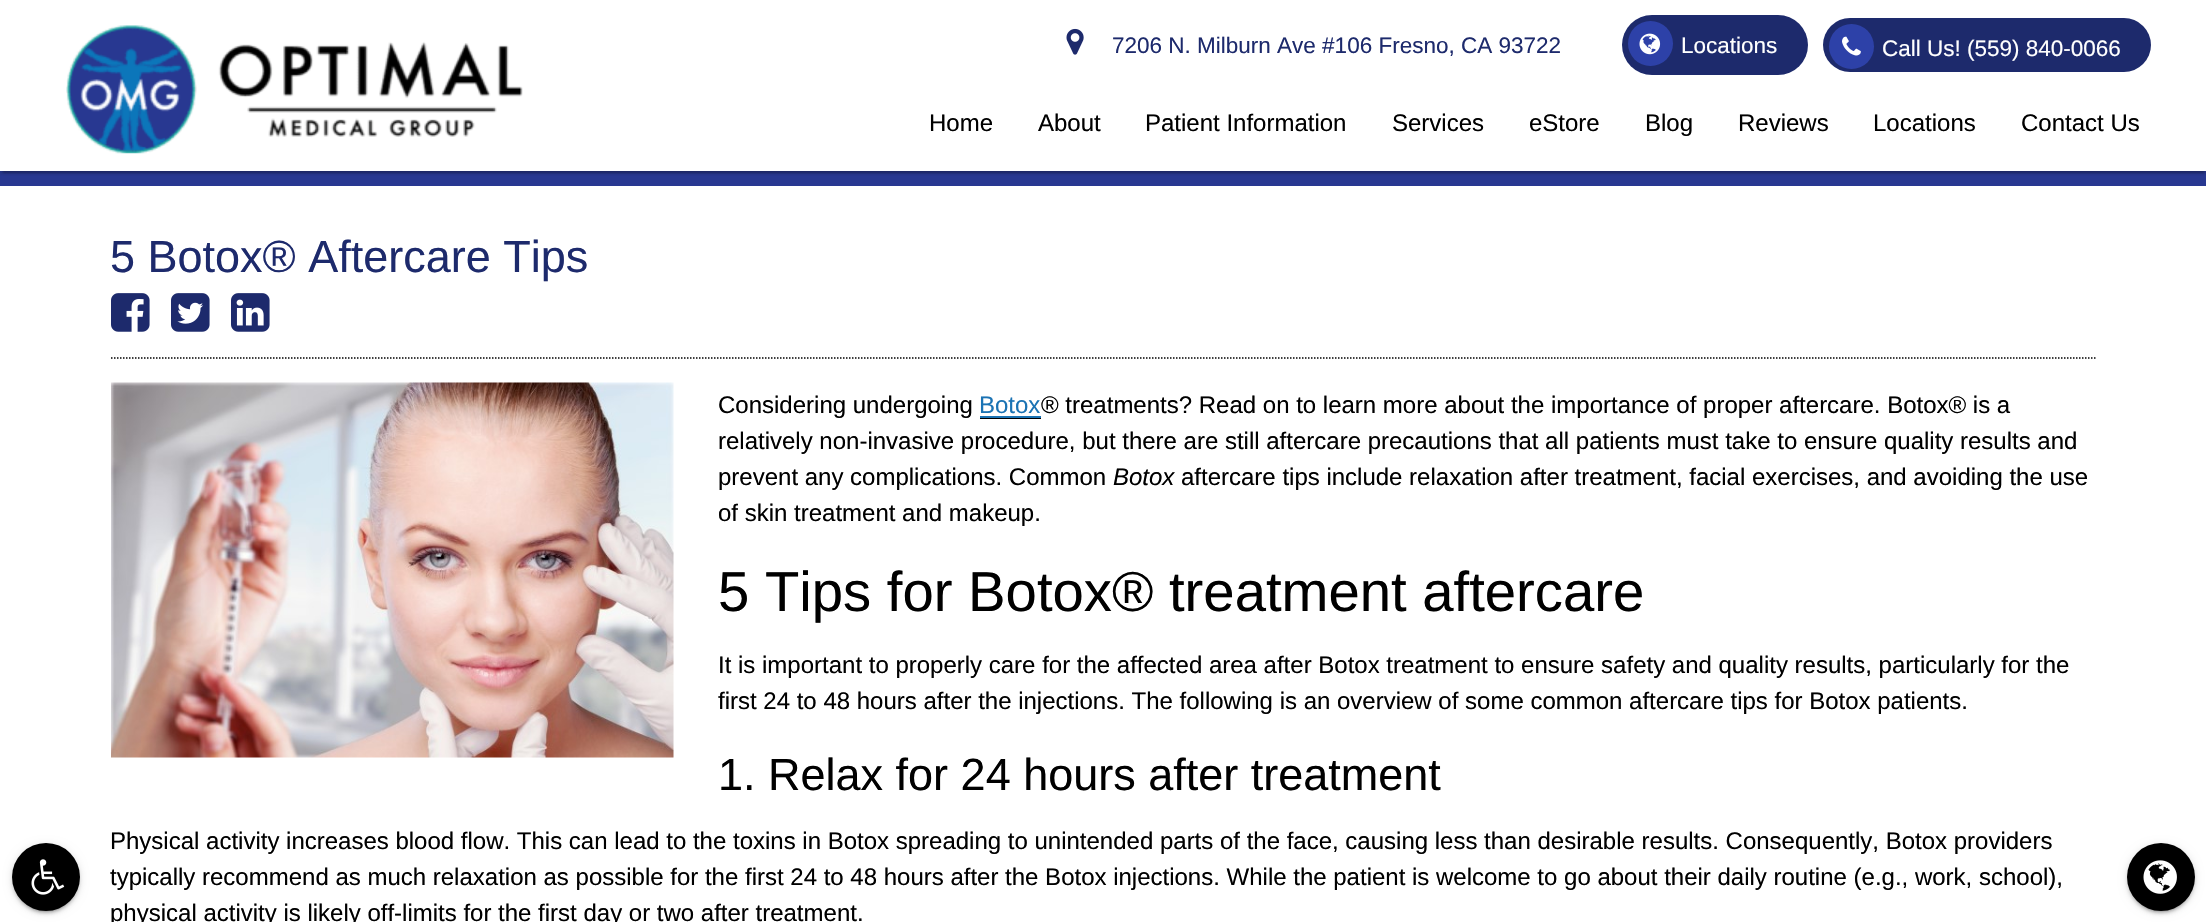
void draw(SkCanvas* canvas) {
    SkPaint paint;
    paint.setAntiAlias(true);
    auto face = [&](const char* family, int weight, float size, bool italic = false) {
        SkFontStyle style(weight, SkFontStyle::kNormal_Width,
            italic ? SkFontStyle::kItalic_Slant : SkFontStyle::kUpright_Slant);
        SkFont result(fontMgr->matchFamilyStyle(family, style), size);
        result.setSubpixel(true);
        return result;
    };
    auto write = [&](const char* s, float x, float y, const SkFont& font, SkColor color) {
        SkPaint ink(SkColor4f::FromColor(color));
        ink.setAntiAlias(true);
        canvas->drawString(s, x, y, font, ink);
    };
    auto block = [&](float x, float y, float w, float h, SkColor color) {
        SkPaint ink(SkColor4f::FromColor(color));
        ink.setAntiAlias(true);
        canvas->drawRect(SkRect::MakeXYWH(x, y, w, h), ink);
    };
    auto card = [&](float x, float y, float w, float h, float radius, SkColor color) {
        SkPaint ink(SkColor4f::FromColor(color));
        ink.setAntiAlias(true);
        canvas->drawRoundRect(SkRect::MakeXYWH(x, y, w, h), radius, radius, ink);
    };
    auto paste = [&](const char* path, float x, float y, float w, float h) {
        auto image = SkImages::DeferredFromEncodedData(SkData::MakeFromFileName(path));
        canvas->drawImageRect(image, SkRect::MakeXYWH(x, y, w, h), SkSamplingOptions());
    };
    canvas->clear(SK_ColorWHITE);
    block(0, 171, 2206, 15, SkColorSetRGB(40, 56, 145));
    canvas->save();
    canvas->clipRect(SkRect::MakeXYWH(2, 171, 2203, 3));
    paint.setColor(SkColorSetARGB(51, 0, 0, 0));
    paint.setMaskFilter(SkMaskFilter::MakeBlur(kNormal_SkBlurStyle, 1));
    canvas->drawRect(SkRect::MakeXYWH(3, 8, 2201, 165), paint);
    paint.setMaskFilter(nullptr);
    canvas->restore();
    canvas->save();
    canvas->clipRect(SkRect::MakeXYWH(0, 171, 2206, 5));
    paint.setColor(SkColorSetARGB(36, 0, 0, 0));
    paint.setMaskFilter(SkMaskFilter::MakeBlur(kNormal_SkBlurStyle, 1.5f));
    canvas->drawRect(SkRect::MakeXYWH(0, 3, 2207, 171), paint);
    paint.setMaskFilter(nullptr);
    canvas->restore();
    paste("pic1.png", 1066, 28, 18, 27);
    auto kFont1 = face("Liberation Sans", 400, 22.5f);
    write("7206 N. Milburn Ave #106 Fresno, CA 93722", 1112, 53, kFont1, SkColorSetRGB(29, 42, 108));
    card(1622, 15, 186, 60, 30, SkColorSetRGB(29, 42, 108));
    paint.setColor(SkColorSetRGB(45, 65, 168));
    canvas->drawCircle(1650.5f, 43.5f, 22.5f, paint);
    paste("pic2.png", 1639, 33, 22, 22);
    write("Locations", 1681, 53, kFont1, SK_ColorWHITE);
    card(1823, 18, 328, 54, 27, SkColorSetRGB(29, 42, 108));
    canvas->drawCircle(1851.5f, 46.5f, 22.5f, paint);
    paste("pic3.png", 1842, 36, 19, 20);
    write("Call Us! (559) 840-0066", 1882, 56, kFont1, SK_ColorWHITE);
    paste("pic4.png", 66, 25, 457, 129);
    auto kFont2 = face("Liberation Sans", 400, 24);
    write("Home", 929, 131, kFont2, SK_ColorBLACK);
    write("About", 1038, 131, kFont2, SK_ColorBLACK);
    write("Patient Information", 1145, 131, kFont2, SK_ColorBLACK);
    write("Services", 1392, 131, kFont2, SK_ColorBLACK);
    write("eStore", 1529, 131, kFont2, SK_ColorBLACK);
    write("Blog", 1645, 131, kFont2, SK_ColorBLACK);
    write("Reviews", 1738, 131, kFont2, SK_ColorBLACK);
    write("Locations", 1873, 131, kFont2, SK_ColorBLACK);
    write("Contact Us", 2021, 131, kFont2, SK_ColorBLACK);
    paint.setColor(SkColorSetARGB(51, 0, 0, 0));
    paint.setMaskFilter(SkMaskFilter::MakeBlur(kNormal_SkBlurStyle, 1));
    canvas->drawRoundRect(SkRect::MakeXYWH(15, 851, 62, 61), 30.5f, 30.5f, paint);
    paint.setMaskFilter(nullptr);
    paint.setColor(SkColorSetARGB(31, 0, 0, 0));
    paint.setMaskFilter(SkMaskFilter::MakeBlur(kNormal_SkBlurStyle, 4));
    canvas->drawRoundRect(SkRect::MakeXYWH(12, 845, 68, 67), 33.5f, 33.5f, paint);
    paint.setMaskFilter(nullptr);
    paint.setColor(SkColorSetARGB(36, 0, 0, 0));
    paint.setMaskFilter(SkMaskFilter::MakeBlur(kNormal_SkBlurStyle, 1.5f));
    canvas->drawRoundRect(SkRect::MakeXYWH(12, 846, 68, 68), 34, 34, paint);
    paint.setMaskFilter(nullptr);
    paint.setColor(SK_ColorBLACK);
    canvas->drawCircle(46, 877, 34, paint);
    paste("pic5.png", 31, 859, 34, 36);
    auto kFont3 = face("Liberation Sans", 400, 45);
    write("5 Botox® Aftercare Tips", 110, 272, kFont3, SkColorSetRGB(29, 42, 108));
    paste("pic6.png", 111, 293, 39, 39);
    paste("pic7.png", 171, 293, 39, 39);
    paste("pic8.png", 231, 293, 39, 39);
    paint.setStyle(SkPaint::kStroke_Style);
    paint.setStrokeWidth(1.5f);
    paint.setPathEffect(SkDashPathEffect::Make({{1.5f, 1.5f}}, 0));
    canvas->drawPath(SkPathBuilder().moveTo(111, 358).lineTo(2095.5f, 358).detach(), paint);
    paint.setPathEffect(nullptr);
    paste("pic9.png", 111, 382, 563, 376);
    write("Considering undergoing", 718, 413, kFont2, SK_ColorBLACK);
    write("Botox", 979, 413, kFont2, SkColorSetRGB(27, 115, 180));
    block(980, 418, 61, 1, SK_ColorBLACK);
    block(980, 416, 61, 2, SkColorSetRGB(27, 115, 180));
    write("® treatments? Read on to learn more about the importance of proper aftercare. Botox® is a", 1041, 413, kFont2, SK_ColorBLACK);
    write("relatively non-invasive procedure, but there are still aftercare precautions that all patients must take to ensure quality results and", 718, 449, kFont2, SK_ColorBLACK);
    write("prevent any complications. Common", 718, 485, kFont2, SK_ColorBLACK);
    auto kFont4 = face("Liberation Sans", 400, 24, true);
    write("Botox", 1113, 485, kFont4, SK_ColorBLACK);
    write("aftercare tips include relaxation after treatment, facial exercises, and avoiding the use", 1181, 485, kFont2, SK_ColorBLACK);
    write("of skin treatment and makeup.", 718, 521, kFont2, SK_ColorBLACK);
    auto kFont5 = face("Liberation Sans", 400, 56.25f);
    write("5 Tips for Botox® treatment aftercare", 718, 611, kFont5, SK_ColorBLACK);
    write("It is important to properly care for the affected area after Botox treatment to ensure safety and quality results, particularly for the", 718, 673, kFont2, SK_ColorBLACK);
    write("first 24 to 48 hours after the injections. The following is an overview of some common aftercare tips for Botox patients.", 718, 709, kFont2, SK_ColorBLACK);
    write("1. Relax for 24 hours after treatment", 718, 790, kFont3, SK_ColorBLACK);
    write("Physical activity increases blood flow. This can lead to the toxins in Botox spreading to unintended parts of the face, causing less than desirable results. Consequently, Botox providers", 110, 849, kFont2, SK_ColorBLACK);
    write("typically recommend as much relaxation as possible for the first 24 to 48 hours after the Botox injections. While the patient is welcome to go about their daily routine (e.g., work, school),", 110, 885, kFont2, SK_ColorBLACK);
    write("physical activity is likely off-limits for the first day or two after treatment.", 110, 921, kFont2, SK_ColorBLACK);
    paint.setStyle(SkPaint::kFill_Style);
    paint.setColor(SkColorSetARGB(51, 0, 0, 0));
    paint.setMaskFilter(SkMaskFilter::MakeBlur(kNormal_SkBlurStyle, 1));
    canvas->drawRoundRect(SkRect::MakeXYWH(2130, 851, 62, 61), 30.5f, 30.5f, paint);
    paint.setMaskFilter(nullptr);
    paint.setColor(SkColorSetARGB(31, 0, 0, 0));
    paint.setMaskFilter(SkMaskFilter::MakeBlur(kNormal_SkBlurStyle, 4));
    canvas->drawRoundRect(SkRect::MakeXYWH(2127, 845, 68, 67), 33.5f, 33.5f, paint);
    paint.setMaskFilter(nullptr);
    paint.setColor(SkColorSetARGB(36, 0, 0, 0));
    paint.setMaskFilter(SkMaskFilter::MakeBlur(kNormal_SkBlurStyle, 1.5f));
    canvas->drawRoundRect(SkRect::MakeXYWH(2127, 846, 68, 68), 34, 34, paint);
    paint.setMaskFilter(nullptr);
    paint.setColor(SK_ColorBLACK);
    canvas->drawCircle(2161, 877, 34, paint);
    paste("pic10.png", 2143, 860, 34, 34);
}
